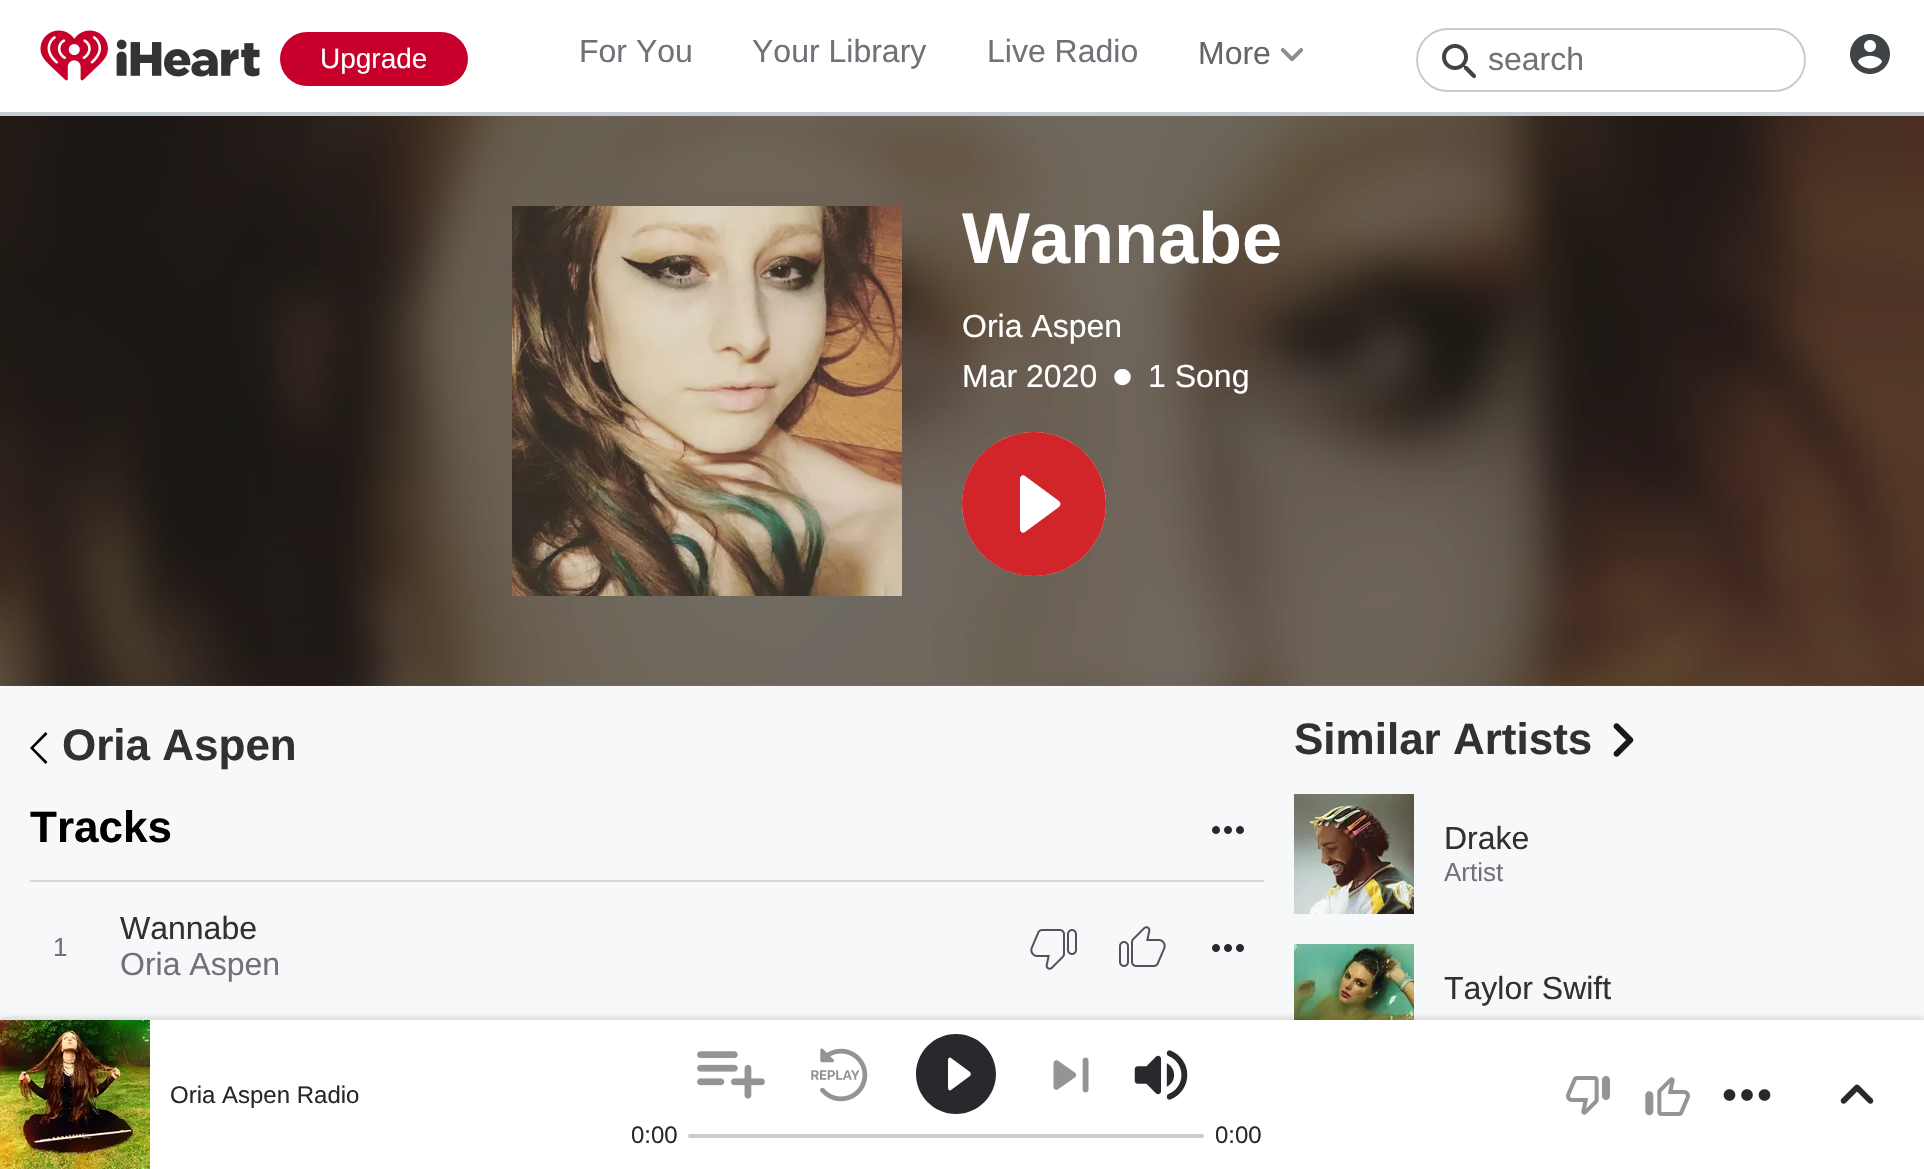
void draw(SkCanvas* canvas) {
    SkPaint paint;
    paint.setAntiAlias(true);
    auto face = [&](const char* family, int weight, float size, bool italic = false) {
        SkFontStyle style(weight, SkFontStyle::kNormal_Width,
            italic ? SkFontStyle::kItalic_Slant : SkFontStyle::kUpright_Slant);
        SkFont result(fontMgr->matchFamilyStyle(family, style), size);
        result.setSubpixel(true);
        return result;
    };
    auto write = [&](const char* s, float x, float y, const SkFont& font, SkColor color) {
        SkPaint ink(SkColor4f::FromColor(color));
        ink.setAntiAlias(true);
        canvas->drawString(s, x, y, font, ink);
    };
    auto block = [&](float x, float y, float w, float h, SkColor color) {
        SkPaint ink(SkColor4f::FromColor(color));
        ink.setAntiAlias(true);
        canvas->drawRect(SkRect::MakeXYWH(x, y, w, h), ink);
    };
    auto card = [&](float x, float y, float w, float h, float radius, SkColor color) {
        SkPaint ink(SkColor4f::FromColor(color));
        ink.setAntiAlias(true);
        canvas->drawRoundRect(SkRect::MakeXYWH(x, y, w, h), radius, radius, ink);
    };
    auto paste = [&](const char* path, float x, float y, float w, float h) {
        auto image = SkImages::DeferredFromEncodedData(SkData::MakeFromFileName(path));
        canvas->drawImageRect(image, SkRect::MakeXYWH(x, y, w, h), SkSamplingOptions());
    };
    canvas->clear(SK_ColorWHITE);
    block(0, 112, 1924, 4, SkColorSetRGB(197, 205, 210));
    paste("pic1.png", 40, 30, 220, 51);
    card(280, 32, 188, 54, 27, SkColorSetRGB(198, 0, 43));
    auto kFont1 = face("Liberation Sans", 400, 28);
    write("Upgrade", 320, 68, kFont1, SK_ColorWHITE);
    auto kFont2 = face("Liberation Sans", 400, 32);
    write("For You", 579, 62, kFont2, SkColorSetRGB(113, 114, 119));
    write("Your Library", 752, 62, kFont2, SkColorSetRGB(113, 114, 119));
    write("Live Radio", 987, 62, kFont2, SkColorSetRGB(113, 114, 119));
    write("More", 1198, 64, kFont2, SkColorSetRGB(102, 102, 102));
    paste("pic2.png", 1280, 48, 24, 14);
    paint.setStyle(SkPaint::kStroke_Style);
    paint.setStrokeWidth(2);
    paint.setColor(SkColorSetRGB(197, 205, 210));
    canvas->drawRoundRect(SkRect::MakeXYWH(1417, 29, 388, 62), 31, 31, paint);
    paste("pic3.png", 1442, 44, 35, 35);
    write("search", 1488, 70, kFont2, SkColorSetRGB(113, 114, 119));
    paste("pic4.png", 1850, 34, 40, 40);
    paste("pic5.png", 0, 116, 1924, 570);
    paste("pic6.png", 512, 206, 390, 390);
    auto kFont3 = face("Liberation Sans", 700, 72);
    write("Wannabe", 962, 263, kFont3, SK_ColorWHITE);
    write("Oria Aspen", 962, 337, kFont2, SK_ColorWHITE);
    write("Mar 2020", 962, 387, kFont2, SK_ColorWHITE);
    auto kFont4 = face("Liberation Sans", 400, 60);
    write("•", 1112, 397, kFont4, SK_ColorWHITE);
    write("1 Song", 1148, 387, kFont2, SK_ColorWHITE);
    paint.setStyle(SkPaint::kFill_Style);
    paint.setColor(SK_ColorWHITE);
    canvas->drawCircle(1034, 504, 72, paint);
    paint.setColor(SkColorSetRGB(210, 37, 42));
    canvas->drawPath(SkPathBuilder().moveTo(1034, 432).cubicTo(994, 432, 962, 464, 962, 504).cubicTo(962, 544, 994, 576, 1034, 576).cubicTo(1074, 576, 1106, 544, 1106, 504).cubicTo(1106, 464, 1074, 432, 1034, 432).close().moveTo(1020, 529).lineTo(1020, 479).cubicTo(1020, 476, 1023, 474, 1025, 476).lineTo(1059, 501).cubicTo(1061, 503, 1061, 505, 1059, 507).lineTo(1025, 532).cubicTo(1023, 534, 1020, 532, 1020, 529).close().detach(), paint);
    block(0, 686, 1924, 334, SkColorSetRGB(246, 248, 249));
    paint.setColor(SK_ColorBLACK);
    canvas->drawPath(SkPathBuilder().moveTo(45.5f, 732).lineTo(30, 748).lineTo(45.5f, 764).lineTo(47.5f, 762).lineTo(33.5f, 748).lineTo(47.5f, 734).close().detach(), paint);
    auto kFont5 = face("Liberation Sans", 700, 44);
    write("Oria Aspen", 62, 760, kFont5, SkColorSetRGB(47, 49, 51));
    block(30, 880, 1234, 2, SkColorSetRGB(215, 215, 215));
    write("Tracks", 30, 842, kFont5, SK_ColorBLACK);
    paste("pic7.png", 1212, 826, 32, 8);
    auto kFont6 = face("Liberation Sans", 400, 26);
    write("1", 53, 956, kFont6, SkColorSetRGB(113, 114, 119));
    write("Wannabe", 120, 939, kFont2, SkColorSetRGB(47, 49, 51));
    write("Oria Aspen", 120, 975, kFont2, SkColorSetRGB(113, 114, 119));
    paste("pic8.png", 1030, 929, 47, 41);
    paste("pic9.png", 1119, 926, 47, 41);
    paste("pic7.png", 1212, 944, 32, 8);
    write("Similar Artists", 1294, 754, kFont5, SkColorSetRGB(47, 49, 51));
    paste("pic10.png", 1613, 723, 21, 34);
    paste("pic11.png", 1294, 794, 120, 120);
    write("Drake", 1444, 849, kFont2, SkColorSetRGB(47, 49, 51));
    write("Artist", 1444, 881, kFont6, SkColorSetRGB(113, 114, 119));
    paste("pic12.png", 1294, 944, 120, 76);
    write("Taylor Swift", 1444, 999, kFont2, SkColorSetRGB(47, 49, 51));
    paint.setColor(SkColorSetARGB(38, 0, 0, 0));
    paint.setMaskFilter(SkMaskFilter::MakeBlur(kNormal_SkBlurStyle, 3));
    canvas->drawRect(SkRect::MakeXYWH(0, 1018, 1924, 150), paint);
    paint.setMaskFilter(nullptr);
    block(150, 1020, 1774, 149, SK_ColorWHITE);
    paste("pic13.png", 0, 1020, 150, 149);
    auto kFont7 = face("Liberation Sans", 400, 24);
    write("Oria Aspen Radio", 170, 1103, kFont7, SkColorSetRGB(39, 41, 45));
    paste("pic14.png", 1566, 1076, 44, 39);
    paste("pic15.png", 1645, 1077, 45, 39);
    paste("pic16.png", 1723, 1089, 48, 12);
    paste("pic17.png", 1840, 1084, 34, 20);
    paste("pic18.png", 697, 1051, 68, 48);
    paste("pic19.png", 811, 1048, 57, 54);
    paint.setColor(SkColorSetRGB(39, 41, 45));
    canvas->drawPath(SkPathBuilder().moveTo(956, 1034).cubicTo(934, 1034, 916, 1052, 916, 1074).cubicTo(916, 1096, 934, 1114, 956, 1114).cubicTo(978, 1114, 996, 1096, 996, 1074).cubicTo(996, 1052, 978, 1034, 956, 1034).close().moveTo(948, 1088).lineTo(948, 1060).cubicTo(948, 1058, 950, 1057, 951, 1058).lineTo(970, 1072).cubicTo(971, 1073, 971, 1075, 970, 1076).lineTo(951, 1090).cubicTo(950, 1091, 948, 1090, 948, 1088).close().detach(), paint);
    paste("pic20.png", 1053, 1057, 36, 36);
    paste("pic21.png", 1134, 1050, 54, 50);
    write("0:00", 631, 1143, kFont7, SkColorSetRGB(39, 41, 45));
    card(688, 1134, 516, 4, 2, SkColorSetRGB(197, 205, 210));
    write("0:00", 1215, 1143, kFont7, SkColorSetRGB(39, 41, 45));
}
